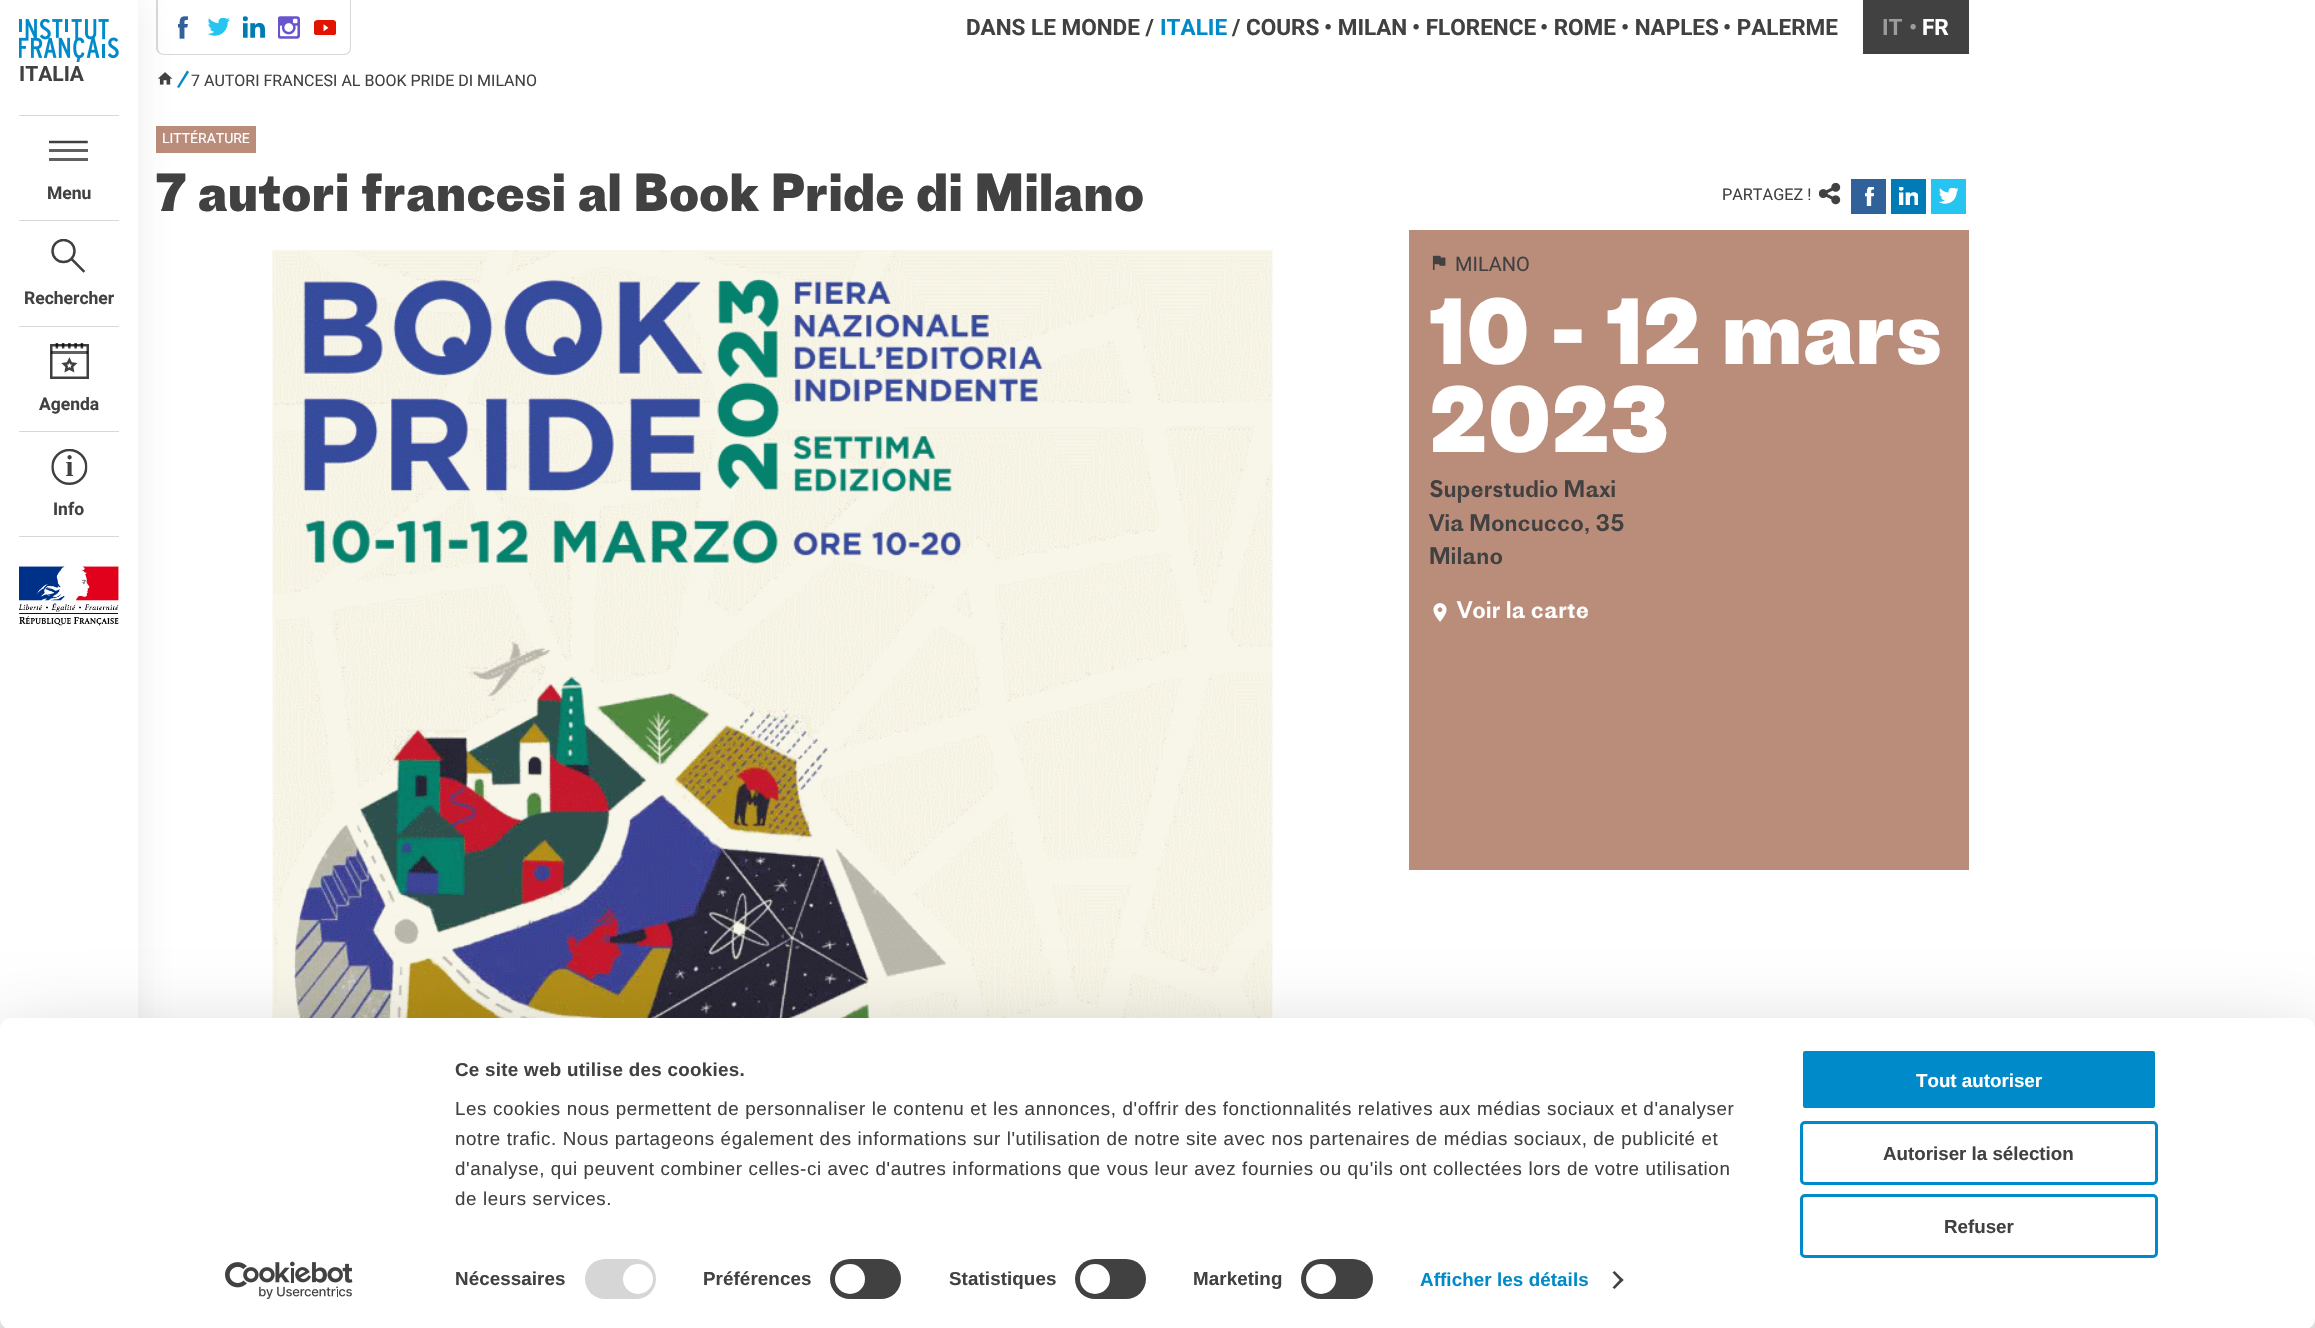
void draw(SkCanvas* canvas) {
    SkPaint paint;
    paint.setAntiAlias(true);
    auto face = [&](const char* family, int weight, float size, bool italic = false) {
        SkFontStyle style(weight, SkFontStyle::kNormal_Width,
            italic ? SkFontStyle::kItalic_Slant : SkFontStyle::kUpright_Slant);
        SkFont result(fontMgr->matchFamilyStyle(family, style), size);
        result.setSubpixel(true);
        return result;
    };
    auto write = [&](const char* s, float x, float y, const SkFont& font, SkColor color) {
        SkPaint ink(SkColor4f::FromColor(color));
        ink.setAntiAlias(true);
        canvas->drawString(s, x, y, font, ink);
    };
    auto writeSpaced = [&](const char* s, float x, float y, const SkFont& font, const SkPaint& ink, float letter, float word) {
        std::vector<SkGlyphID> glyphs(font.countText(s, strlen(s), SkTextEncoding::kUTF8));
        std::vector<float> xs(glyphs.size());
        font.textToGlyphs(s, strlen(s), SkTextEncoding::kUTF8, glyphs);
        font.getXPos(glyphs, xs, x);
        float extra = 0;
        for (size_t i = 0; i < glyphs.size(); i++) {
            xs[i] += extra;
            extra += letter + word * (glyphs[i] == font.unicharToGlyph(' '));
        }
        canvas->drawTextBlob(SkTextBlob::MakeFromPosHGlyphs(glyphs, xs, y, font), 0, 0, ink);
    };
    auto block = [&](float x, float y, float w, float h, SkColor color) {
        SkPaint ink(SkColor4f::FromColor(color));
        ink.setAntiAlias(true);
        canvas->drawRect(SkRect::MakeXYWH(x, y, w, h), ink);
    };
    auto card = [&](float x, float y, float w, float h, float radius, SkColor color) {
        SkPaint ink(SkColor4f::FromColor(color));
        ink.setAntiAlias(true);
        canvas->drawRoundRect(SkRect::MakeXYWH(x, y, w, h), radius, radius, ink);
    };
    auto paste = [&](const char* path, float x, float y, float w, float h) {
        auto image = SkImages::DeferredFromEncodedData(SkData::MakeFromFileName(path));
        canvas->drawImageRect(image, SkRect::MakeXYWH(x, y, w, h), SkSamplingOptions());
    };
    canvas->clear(SK_ColorWHITE);
    paint.setColor(SkColorSetRGB(216, 216, 216));
    canvas->drawPath(SkPathBuilder(SkPathFillType::kEvenOdd).moveTo(156, 0).lineTo(351, 0).lineTo(351, 48).cubicTo(351, 52, 348, 55, 344, 55).lineTo(164, 55).cubicTo(160, 55, 156, 52, 156, 48).close().moveTo(158, 0).lineTo(350, 0).lineTo(350, 48).cubicTo(350, 51, 347, 54, 344, 54).lineTo(164, 54).cubicTo(160, 54, 158, 51, 158, 48).close().detach(), paint);
    paste("pic5.png", 178, 16, 10, 23);
    paste("pic10.png", 157, 72, 16, 13);
    paint.setColor(SkColorSetRGB(0, 138, 201));
    canvas->drawPath(SkPathBuilder().moveTo(187, 70.5f).lineTo(189, 72).lineTo(179, 88).lineTo(177, 87).close().detach(), paint);
    block(156, 126, 100, 27, SkColorSetRGB(186, 140, 122));
    paint.setColor(SkColorSetARGB(26, 65, 65, 65));
    paint.setMaskFilter(SkMaskFilter::MakeBlur(kNormal_SkBlurStyle, 17.5f));
    canvas->drawRect(SkRect::MakeXYWH(0, 0, 138, 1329), paint);
    paint.setMaskFilter(nullptr);
    block(0, 0, 138, 1328, SK_ColorWHITE);
    paste("pic1.png", 19, 19, 100, 43);
    auto kFont1 = face("Roboto", 700, 21);
    write("ITALIA", 19, 81, kFont1, SkColorSetRGB(65, 65, 65));
    block(19, 115, 100, 1, SkColorSetRGB(216, 216, 216));
    block(19, 220, 100, 1, SkColorSetRGB(216, 216, 216));
    canvas->save();
    canvas->clipRect(SkRect::MakeXYWH(49, 140, 40, 21));
    paint.setStyle(SkPaint::kStroke_Style);
    paint.setStrokeWidth(2.5f);
    paint.setStrokeCap(SkPaint::kSquare_Cap);
    paint.setColor(SkColorSetRGB(64, 64, 64));
    canvas->drawPath(SkPathBuilder().moveTo(50, 142).lineTo(86.5f, 142).detach(), paint);
    canvas->restore();
    block(49, 149, 39, 3, SkColorSetRGB(96, 96, 96));
    block(49, 158, 39, 3, SkColorSetRGB(96, 96, 96));
    auto kFont2 = face("Roboto", 700, 17.5f);
    write("Menu", 47, 199, kFont2, SkColorSetRGB(65, 65, 65));
    block(19, 326, 100, 1, SkColorSetRGB(216, 216, 216));
    canvas->save();
    canvas->clipRect(SkRect::MakeXYWH(51, 239, 35, 35));
    paint.setStrokeCap(SkPaint::kButt_Cap);
    canvas->drawCircle(63.5f, 251, 11, paint);
    canvas->restore();
    paint.setStrokeCap(SkPaint::kSquare_Cap);
    canvas->drawPath(SkPathBuilder().moveTo(72.5f, 260).lineTo(83.5f, 271).detach(), paint);
    write("Rechercher", 24, 304, kFont2, SkColorSetRGB(65, 65, 65));
    block(19, 431, 100, 1, SkColorSetRGB(216, 216, 216));
    paste("pic2.png", 50, 343, 39, 36);
    write("Agenda", 39, 410, kFont2, SkColorSetRGB(65, 65, 65));
    block(19, 536, 100, 1, SkColorSetRGB(216, 216, 216));
    paste("pic3.png", 51, 449, 37, 36);
    write("Info", 53, 515, kFont2, SkColorSetRGB(65, 65, 65));
    paste("pic4.png", 19, 566, 100, 60);
    paste("pic6.png", 208, 18, 22, 18);
    paste("pic7.png", 243, 16, 22, 22);
    paste("pic8.png", 278, 16, 22, 23);
    paste("pic9.png", 314, 20, 22, 15);
    auto kFont3 = face("Roboto", 700, 22.5f);
    write("DANS LE MONDE /", 966, 35, kFont3, SkColorSetRGB(65, 65, 65));
    write("ITALIE", 1160, 35, kFont3, SkColorSetRGB(0, 138, 201));
    write("/ COURS", 1232, 35, kFont3, SkColorSetRGB(65, 65, 65));
    write("• MILAN", 1324, 35, kFont3, SkColorSetRGB(65, 65, 65));
    write("• FLORENCE", 1412, 35, kFont3, SkColorSetRGB(65, 65, 65));
    write("• ROME", 1540, 35, kFont3, SkColorSetRGB(65, 65, 65));
    write("• NAPLES", 1621, 35, kFont3, SkColorSetRGB(65, 65, 65));
    write("• PALERME", 1723, 35, kFont3, SkColorSetRGB(65, 65, 65));
    block(1863, 0, 106, 54, SkColorSetRGB(65, 65, 65));
    write("IT", 1882, 35, kFont3, SkColorSetRGB(155, 155, 155));
    write("•", 1909, 35, kFont3, SkColorSetRGB(155, 155, 155));
    write("FR", 1922, 35, kFont3, SK_ColorWHITE);
    auto kFont4 = face("Roboto", 400, 16);
    write("7 AUTORI FRANCESI AL BOOK PRIDE DI MILANO", 191, 86, kFont4, SkColorSetRGB(65, 65, 65));
    auto kFont5 = face("Roboto", 400, 14);
    write("LITTÉRATURE", 162, 143, kFont5, SK_ColorWHITE);
    auto kFont6 = face("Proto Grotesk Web", 700, 50);
    write("7 autori francesi al Book Pride di Milano", 156, 211, kFont6, SkColorSetRGB(65, 65, 65));
    auto kFont7 = face("Roboto", 400, 16.25f);
    write("PARTAGEZ !", 1722, 200, kFont7, SkColorSetRGB(65, 65, 65));
    paste("pic11.png", 1819, 183, 22, 22);
    card(1851, 179, 35, 35, 4, SkColorSetRGB(48, 97, 153));
    paste("pic12.png", 1865, 187, 9, 19);
    paint.setStrokeWidth(8);
    paint.setStrokeCap(SkPaint::kButt_Cap);
    paint.setColor(SkColorSetRGB(48, 97, 153));
    canvas->drawRect(SkRect::MakeXYWH(1855, 183, 27, 27), paint);
    card(1891, 179, 35, 35, 4, SkColorSetRGB(0, 123, 182));
    paste("pic13.png", 1899, 187, 19, 18);
    paint.setColor(SkColorSetRGB(0, 123, 182));
    canvas->drawRect(SkRect::MakeXYWH(1895, 183, 27, 27), paint);
    card(1931, 179, 35, 35, 4, SkColorSetRGB(38, 196, 241));
    paste("pic14.png", 1939, 188, 19, 16);
    paint.setColor(SkColorSetRGB(38, 196, 241));
    canvas->drawRect(SkRect::MakeXYWH(1935, 183, 27, 27), paint);
    paste("pic15.png", 272, 250, 1001, 768);
    block(1409, 230, 560, 640, SkColorSetRGB(186, 140, 122));
    paste("pic16.png", 1432, 255, 14, 15);
    auto kFont8 = face("Roboto", 400, 20);
    write("MILANO", 1455, 271, kFont8, SkColorSetRGB(65, 65, 65));
    auto kFont9 = face("Proto Grotesk Web", 700, 87.5f);
    write("10 - 12 mars", 1429, 364, kFont9, SK_ColorWHITE);
    write("2023", 1429, 452, kFont9, SK_ColorWHITE);
    auto kFont10 = face("Proto Grotesk Web", 400, 22.5f);
    write("Superstudio Maxi", 1429, 497, kFont10, SkColorSetRGB(65, 65, 65));
    write("Via Moncucco, 35", 1429, 531, kFont10, SkColorSetRGB(65, 65, 65));
    write("Milano", 1429, 564, kFont10, SkColorSetRGB(65, 65, 65));
    paste("pic17.png", 1433, 603, 14, 19);
    write("Voir la carte", 1457, 618, kFont10, SK_ColorWHITE);
    paint.setStyle(SkPaint::kFill_Style);
    paint.setColor(SkColorSetARGB(77, 0, 0, 0));
    paint.setMaskFilter(SkMaskFilter::MakeBlur(kNormal_SkBlurStyle, 44));
    canvas->drawRoundRect(SkRect::MakeXYWH(0, 1055, 2315, 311), 10, 10, paint);
    paint.setMaskFilter(nullptr);
    card(0, 1018, 2315, 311, 10, SK_ColorWHITE);
    auto kFont11 = face("Liberation Sans", 700, 18.75f);
    paint.setColor(SkColorSetRGB(65, 65, 65));
    writeSpaced("Ce site web utilise des cookies.", 455, 1076, kFont11, paint, 0.3f, 0);
    auto kFont12 = face("Liberation Sans", 400, 18.75f);
    writeSpaced("Les cookies nous permettent de personnaliser le contenu et les annonces, d'offrir des fonctionnalités relatives aux médias sociaux et d'analyser", 455, 1115, kFont12, paint, 0.62f, 0);
    writeSpaced("notre trafic. Nous partageons également des informations sur l'utilisation de notre site avec nos partenaires de médias sociaux, de publicité et", 455, 1145, kFont12, paint, 0.62f, 0);
    writeSpaced("d'analyse, qui peuvent combiner celles-ci avec d'autres informations que vous leur avez fournies ou qu'ils ont collectées lors de votre utilisation", 455, 1175, kFont12, paint, 0.62f, 0);
    writeSpaced("de leurs services.", 455, 1205, kFont12, paint, 0.62f, 0);
    writeSpaced("Nécessaires", 455, 1285, kFont11, paint, 0.1f, 0);
    card(585, 1259, 71, 40, 20, SkColorSetRGB(214, 214, 214));
    paint.setColor(SK_ColorWHITE);
    canvas->drawCircle(638, 1279, 15, paint);
    paint.setColor(SkColorSetRGB(65, 65, 65));
    writeSpaced("Préférences", 703, 1285, kFont11, paint, 0.1f, 0);
    card(830, 1259, 71, 40, 20, SkColorSetRGB(65, 65, 65));
    paint.setColor(SK_ColorWHITE);
    canvas->drawCircle(850, 1279, 15, paint);
    paint.setColor(SkColorSetRGB(65, 65, 65));
    writeSpaced("Statistiques", 949, 1285, kFont11, paint, 0.1f, 0);
    card(1075, 1259, 71, 40, 20, SkColorSetRGB(65, 65, 65));
    paint.setColor(SK_ColorWHITE);
    canvas->drawCircle(1095, 1279, 15, paint);
    paint.setColor(SkColorSetRGB(65, 65, 65));
    writeSpaced("Marketing", 1193, 1285, kFont11, paint, 0.1f, 0);
    card(1301, 1259, 72, 40, 20, SkColorSetRGB(65, 65, 65));
    paint.setColor(SK_ColorWHITE);
    canvas->drawCircle(1321, 1279, 15, paint);
    paint.setColor(SkColorSetRGB(0, 138, 201));
    writeSpaced("Afficher les détails", 1420, 1286, kFont11, paint, 0.1f, 0);
    paint.setColor(SkColorSetRGB(65, 65, 65));
    canvas->drawPath(SkPathBuilder().moveTo(1614.5f, 1271).lineTo(1623.5f, 1280).lineTo(1621.5f, 1282).lineTo(1612.5f, 1272.5f).close().detach(), paint);
    canvas->drawPath(SkPathBuilder().moveTo(1621.5f, 1278).lineTo(1623.5f, 1280).lineTo(1614.5f, 1289).lineTo(1612.5f, 1287.5f).close().detach(), paint);
    paint.setColor(SkColorSetRGB(0, 138, 201));
    canvas->drawRoundRect(SkRect::MakeXYWH(1801.5f, 1049.5f, 355, 60), 3.5f, 3.5f, paint);
    paint.setStyle(SkPaint::kStroke_Style);
    paint.setStrokeWidth(3);
    paint.setColor(SK_ColorWHITE);
    canvas->drawRoundRect(SkRect::MakeXYWH(1801.5f, 1049.5f, 355, 60), 3.5f, 3.5f, paint);
    write("Tout autoriser", 1916, 1087, kFont11, SK_ColorWHITE);
    paint.setColor(SkColorSetRGB(0, 138, 201));
    canvas->drawRoundRect(SkRect::MakeXYWH(1801.5f, 1122.5f, 355, 61), 3.5f, 3.5f, paint);
    write("Autoriser la sélection", 1883, 1160, kFont11, SkColorSetRGB(65, 65, 65));
    canvas->drawRoundRect(SkRect::MakeXYWH(1801.5f, 1195.5f, 355, 61), 3.5f, 3.5f, paint);
    write("Refuser", 1944, 1233, kFont11, SkColorSetRGB(65, 65, 65));
    paste("pic18.png", 225, 1261, 128, 38);
}
